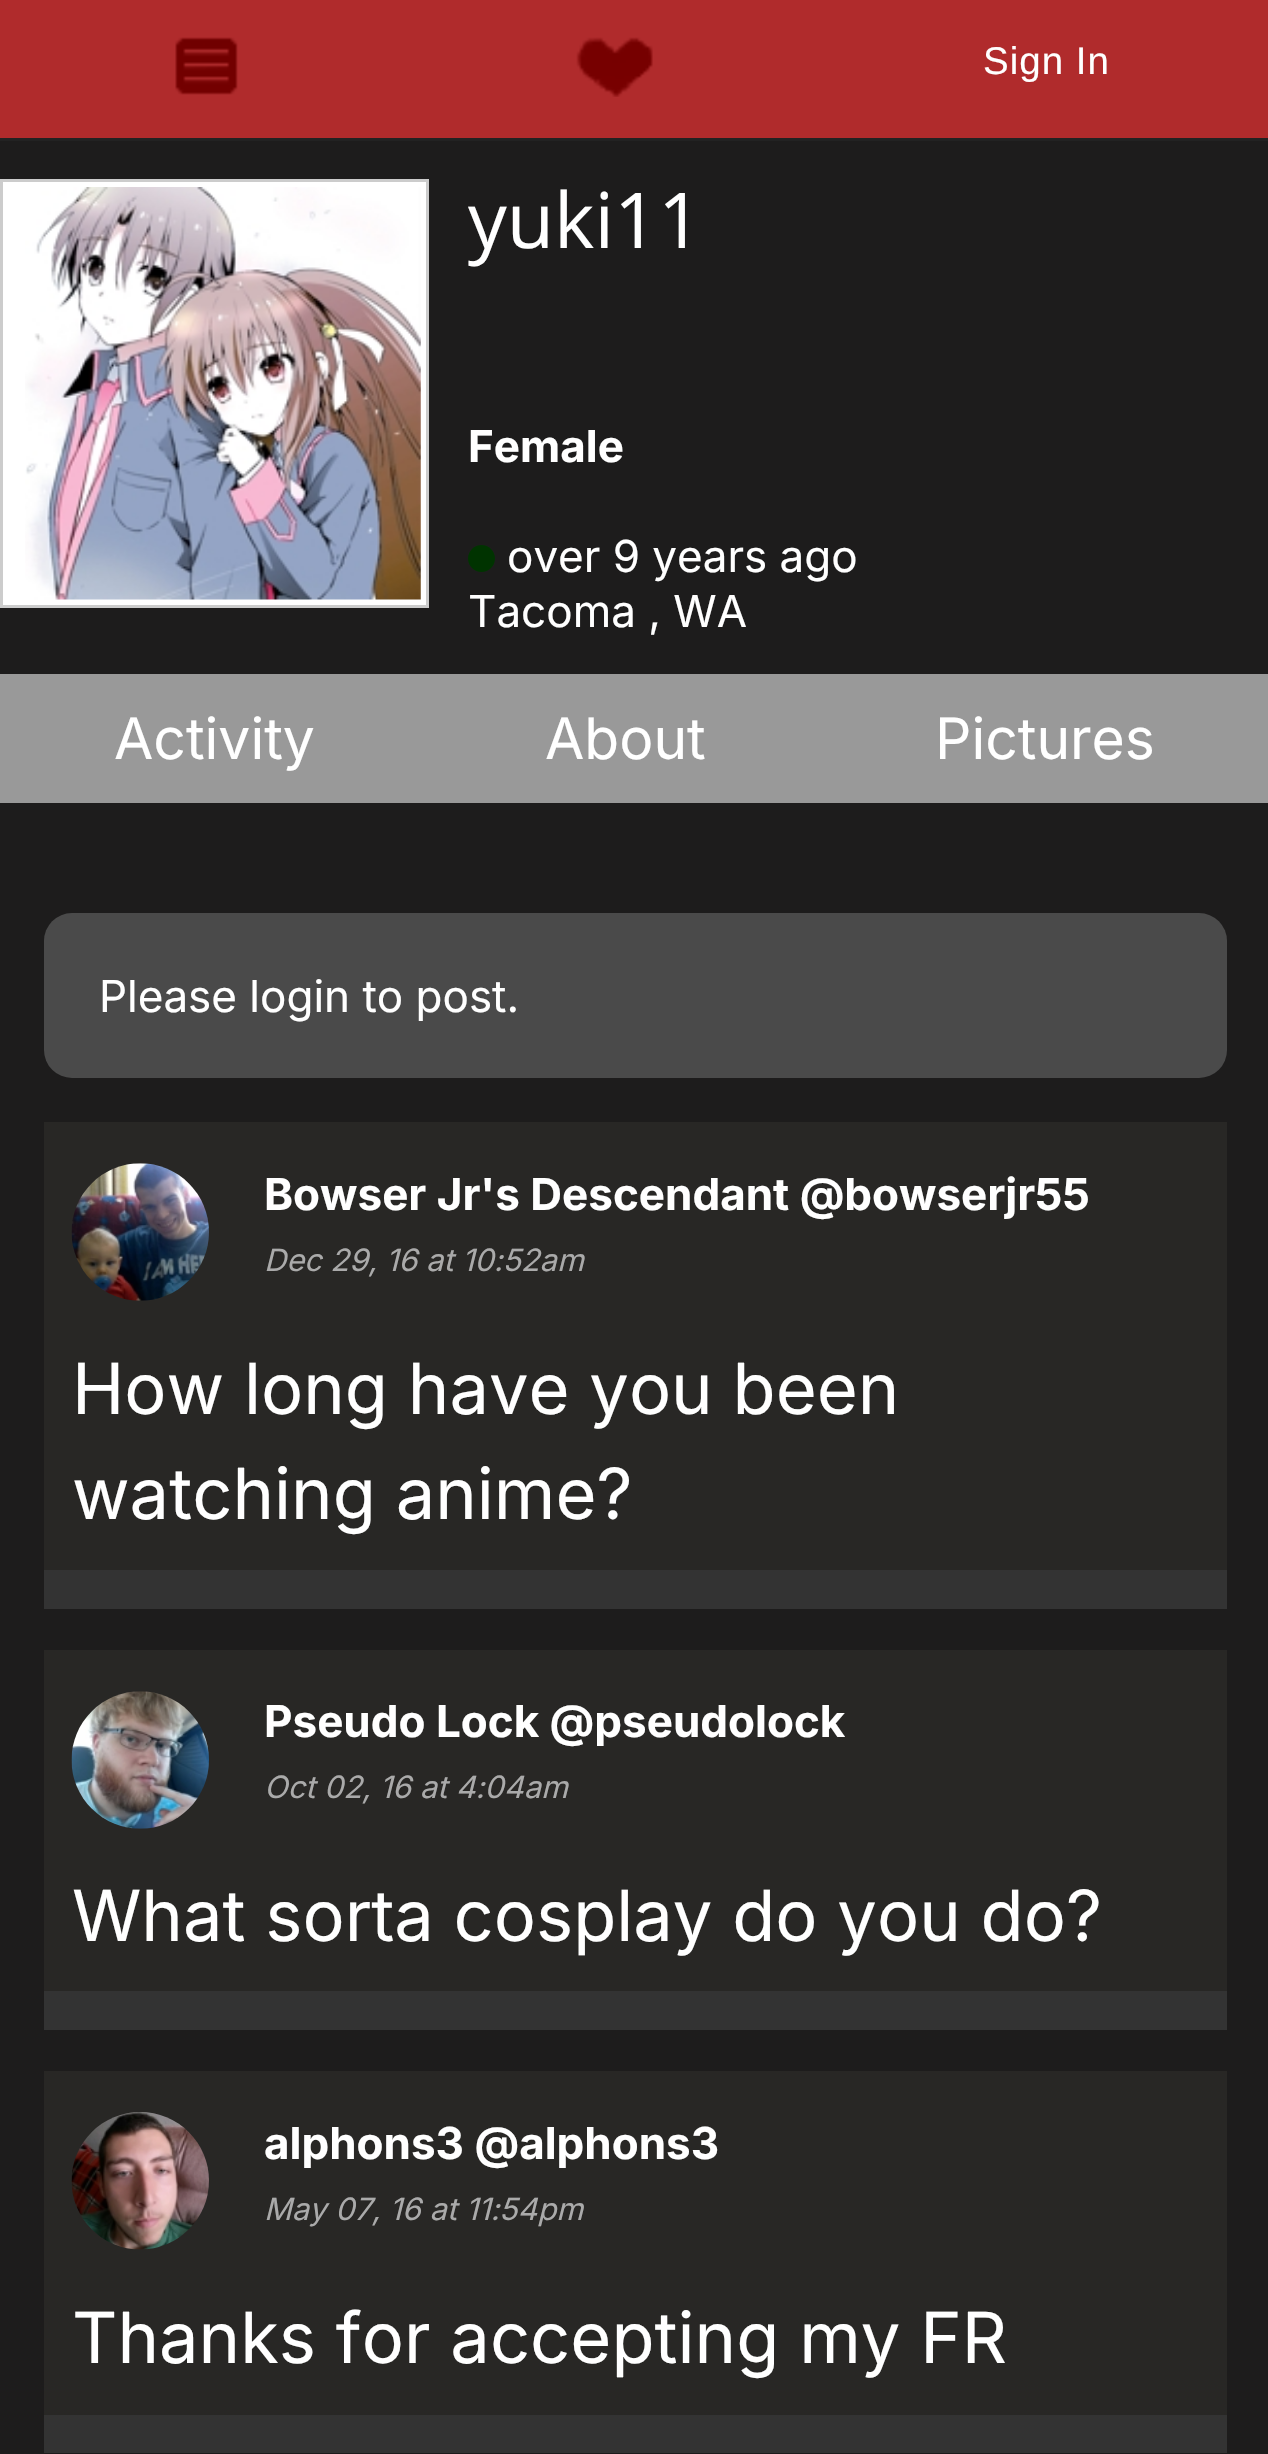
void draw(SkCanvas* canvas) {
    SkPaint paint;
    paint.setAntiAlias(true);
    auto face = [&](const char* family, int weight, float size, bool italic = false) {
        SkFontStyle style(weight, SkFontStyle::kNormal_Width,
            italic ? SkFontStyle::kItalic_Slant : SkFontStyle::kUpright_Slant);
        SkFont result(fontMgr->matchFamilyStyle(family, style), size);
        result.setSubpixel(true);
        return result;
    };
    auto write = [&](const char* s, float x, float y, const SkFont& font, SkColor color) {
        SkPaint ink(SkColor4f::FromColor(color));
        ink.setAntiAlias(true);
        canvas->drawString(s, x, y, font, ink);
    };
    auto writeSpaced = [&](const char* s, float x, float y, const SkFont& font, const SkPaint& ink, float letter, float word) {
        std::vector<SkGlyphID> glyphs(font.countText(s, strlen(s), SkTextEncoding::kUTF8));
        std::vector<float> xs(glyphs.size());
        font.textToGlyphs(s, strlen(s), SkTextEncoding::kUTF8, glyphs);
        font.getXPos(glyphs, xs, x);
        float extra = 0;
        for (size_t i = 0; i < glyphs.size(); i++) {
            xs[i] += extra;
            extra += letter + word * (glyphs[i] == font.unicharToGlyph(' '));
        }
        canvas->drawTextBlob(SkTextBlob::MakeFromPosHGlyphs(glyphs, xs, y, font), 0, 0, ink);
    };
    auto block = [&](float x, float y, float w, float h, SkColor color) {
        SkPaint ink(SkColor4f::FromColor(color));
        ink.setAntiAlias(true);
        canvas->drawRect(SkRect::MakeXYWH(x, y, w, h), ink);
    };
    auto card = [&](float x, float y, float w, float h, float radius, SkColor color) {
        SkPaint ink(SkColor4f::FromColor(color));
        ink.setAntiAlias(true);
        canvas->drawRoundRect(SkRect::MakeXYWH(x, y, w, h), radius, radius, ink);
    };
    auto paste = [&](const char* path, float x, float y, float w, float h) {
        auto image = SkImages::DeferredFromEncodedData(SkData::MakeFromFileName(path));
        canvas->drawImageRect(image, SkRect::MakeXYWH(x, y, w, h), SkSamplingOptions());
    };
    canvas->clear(SkColorSetRGB(29, 28, 28));
    block(0, 0, 1268, 138, SkColorSetRGB(176, 43, 44));
    block(0, 138, 1268, 3, SkColorSetRGB(34, 34, 34));
    paste("pic1.png", 175, 37, 63, 58);
    paste("pic2.png", 576, 37, 77, 60);
    auto kFont1 = face("Liberation Sans", 400, 38.5f);
    paint.setColor(SK_ColorWHITE);
    writeSpaced("Sign In", 983, 74, kFont1, paint, 1, 0);
    canvas->drawRect(SkRect::MakeXYWH(1.5f, 180.5f, 426, 426), paint);
    paint.setStyle(SkPaint::kStroke_Style);
    paint.setStrokeWidth(3);
    paint.setColor(SkColorSetRGB(204, 204, 204));
    canvas->drawRect(SkRect::MakeXYWH(1.5f, 180.5f, 426, 426), paint);
    paste("pic3.png", 25, 187, 396, 413);
    auto kFont2 = face("Open Sans", 400, 77);
    write("yuki11", 468, 248, kFont2, SK_ColorWHITE);
    auto kFont3 = face("Inter", 700, 44);
    write("Female", 468, 462, kFont3, SK_ColorWHITE);
    paint.setStyle(SkPaint::kFill_Style);
    paint.setColor(SkColorSetRGB(0, 51, 0));
    canvas->drawCircle(481.5f, 558.5f, 13.5f, paint);
    auto kFont4 = face("Inter", 400, 44);
    write("over 9 years ago", 507, 572, kFont4, SK_ColorWHITE);
    write("Tacoma , WA", 468, 627, kFont4, SK_ColorWHITE);
    block(0, 674, 1268, 129, SkColorSetRGB(153, 153, 153));
    auto kFont5 = face("Inter", 400, 57);
    write("Activity", 114, 759, kFont5, SK_ColorWHITE);
    write("About", 545, 759, kFont5, SK_ColorWHITE);
    write("Pictures", 935, 759, kFont5, SK_ColorWHITE);
    card(44, 913, 1183, 165, 28, SkColorSetRGB(74, 74, 74));
    write("Please login to post.", 99, 1012, kFont4, SK_ColorWHITE);
    block(44, 1122, 1183, 448, SkColorSetRGB(40, 39, 37));
    paste("pic4.png", 71, 1163, 138, 138);
    write("Bowser Jr's Descendant @bowserjr55", 264, 1210, kFont3, SK_ColorWHITE);
    auto kFont6 = face("Inter", 400, 30.75f, true);
    write("Dec 29, 16 at 10:52am", 264, 1271, kFont6, SkColorSetRGB(170, 170, 170));
    auto kFont7 = face("Inter", 400, 70.4f);
    write("How long have you been", 72, 1414, kFont7, SK_ColorWHITE);
    write("watching anime?", 72, 1519, kFont7, SK_ColorWHITE);
    block(44, 1570, 1183, 39, SkColorSetRGB(51, 51, 51));
    block(44, 1650, 1183, 341, SkColorSetRGB(40, 39, 37));
    paste("pic5.png", 71, 1691, 138, 138);
    write("Pseudo Lock @pseudolock", 264, 1737, kFont3, SK_ColorWHITE);
    write("Oct 02, 16 at 4:04am", 264, 1798, kFont6, SkColorSetRGB(170, 170, 170));
    write("What sorta cosplay do you do?", 72, 1941, kFont7, SK_ColorWHITE);
    block(44, 1991, 1183, 39, SkColorSetRGB(51, 51, 51));
    block(44, 2071, 1183, 344, SkColorSetRGB(40, 39, 37));
    paste("pic6.png", 71, 2112, 138, 138);
    write("alphons3 @alphons3", 264, 2159, kFont3, SK_ColorWHITE);
    write("May 07, 16 at 11:54pm", 264, 2220, kFont6, SkColorSetRGB(170, 170, 170));
    write("Thanks for accepting my FR", 72, 2363, kFont7, SK_ColorWHITE);
    block(44, 2415, 1183, 38, SkColorSetRGB(51, 51, 51));
}
